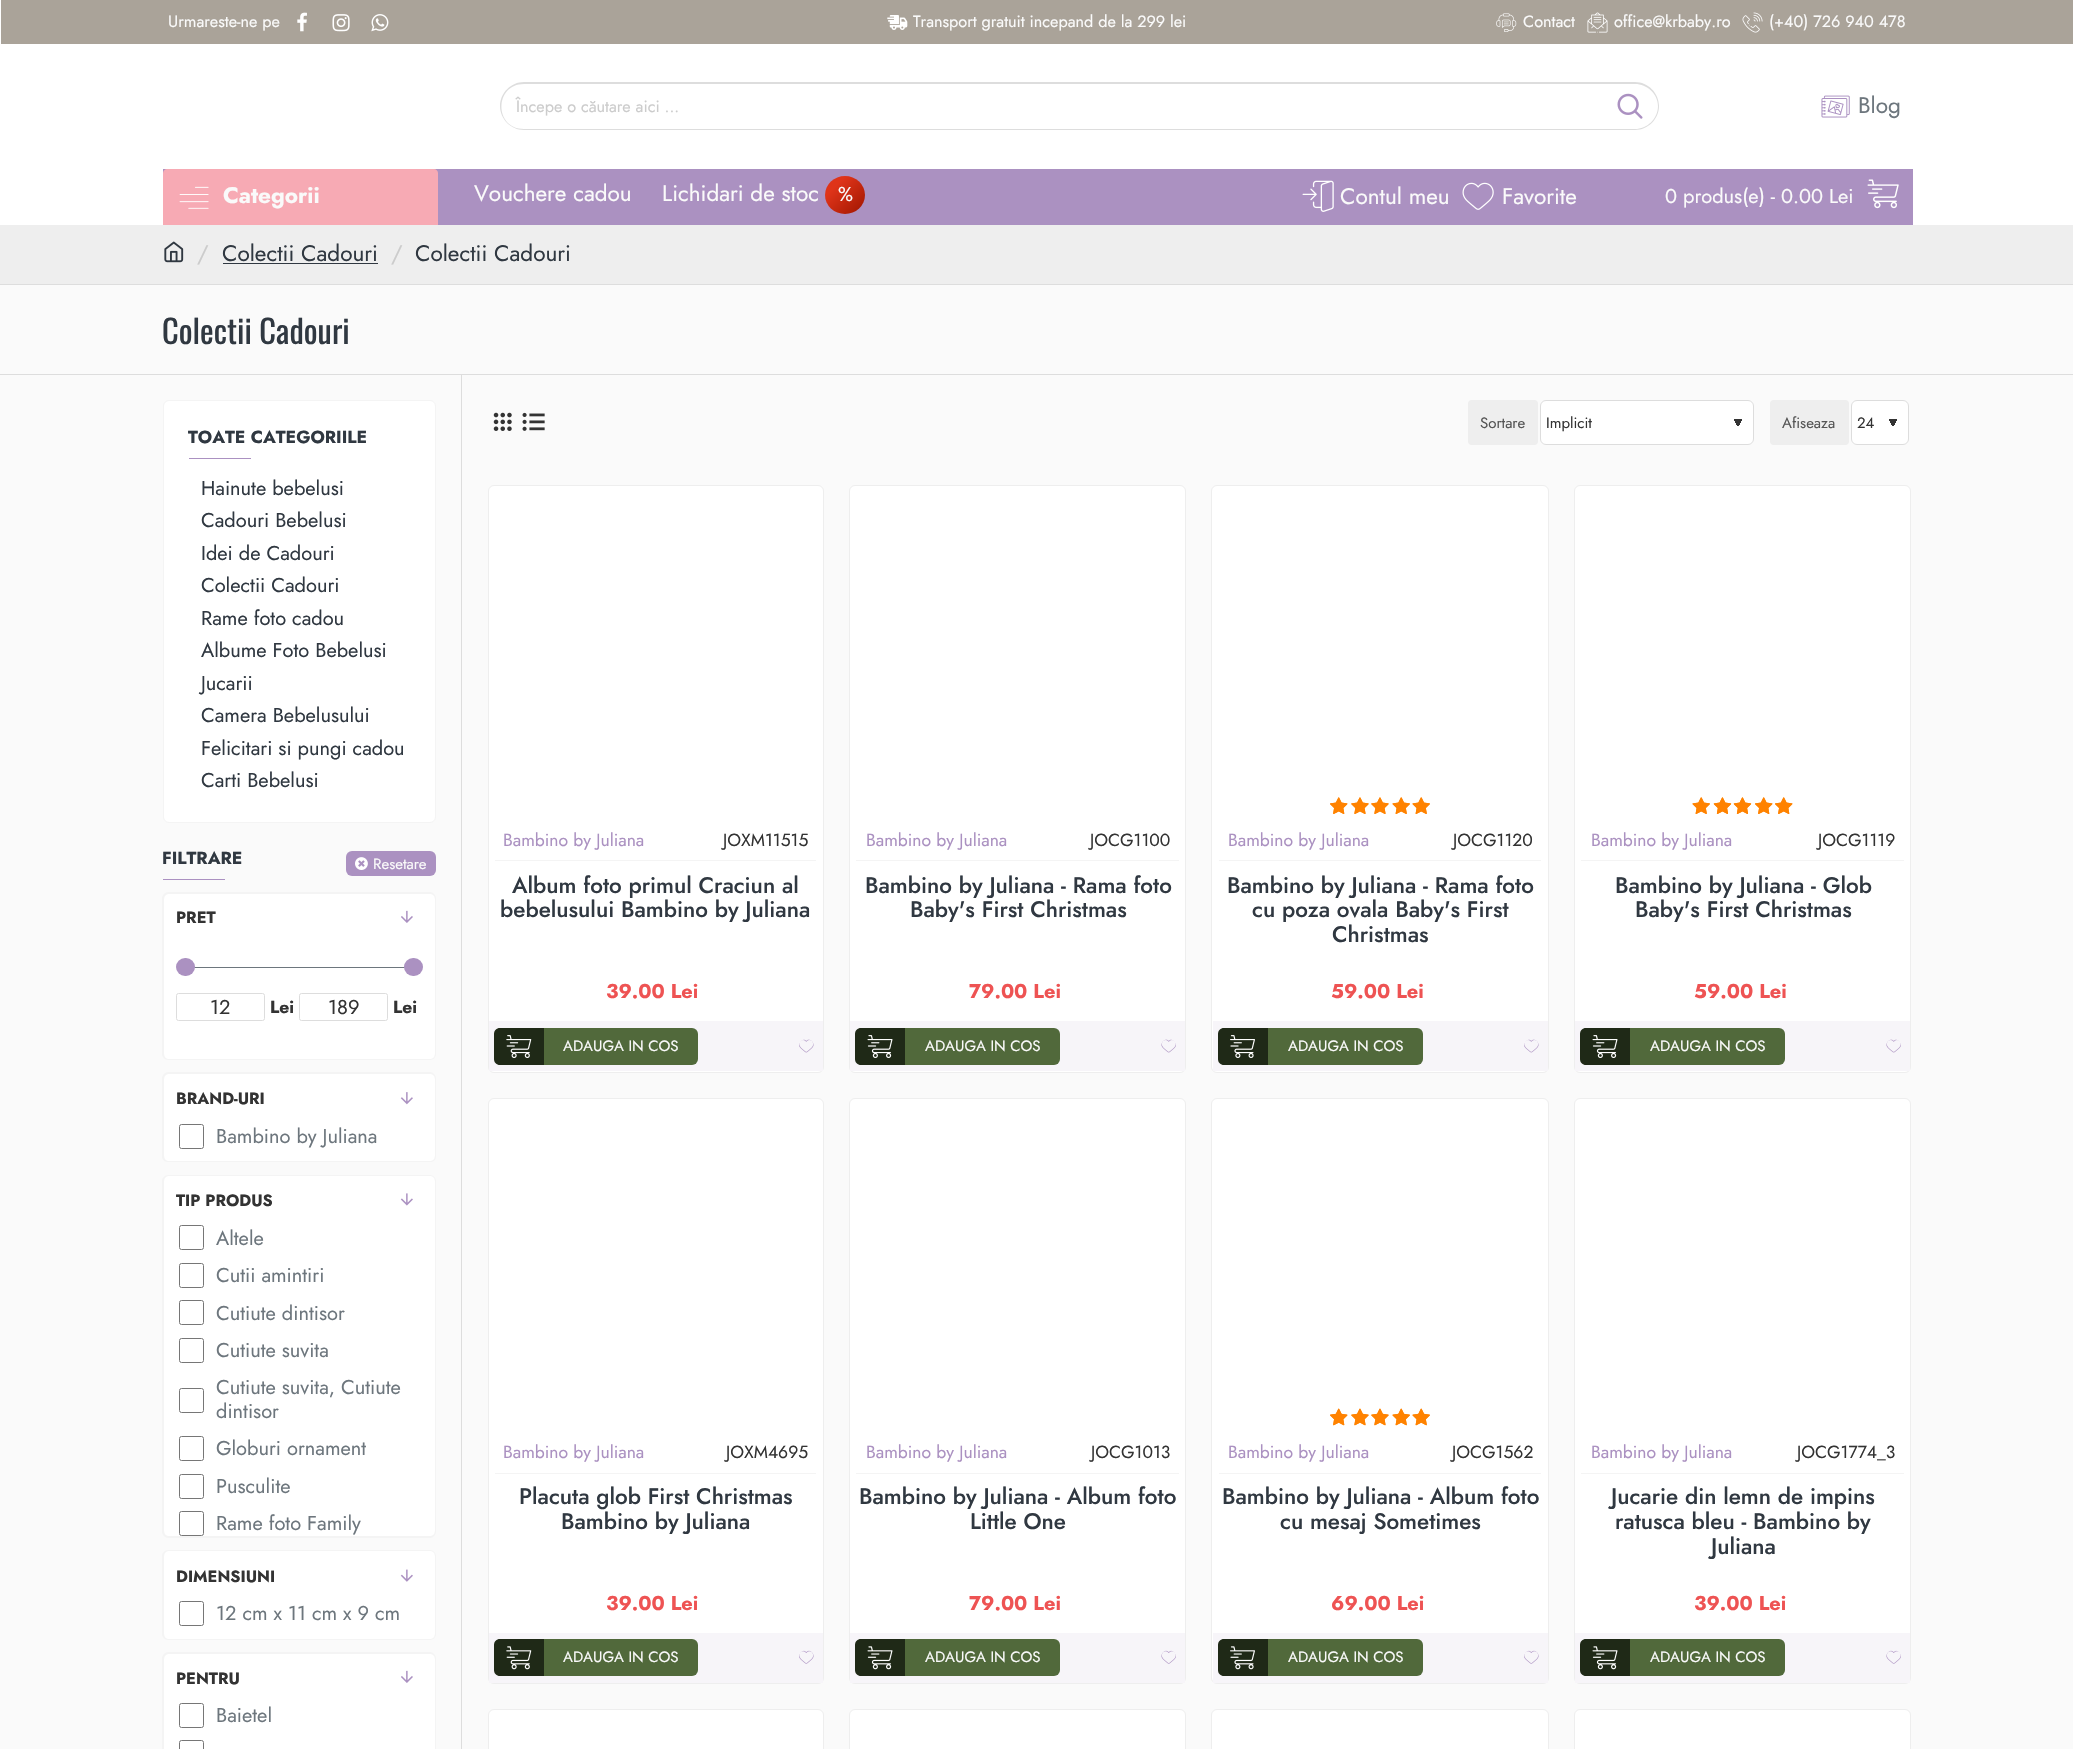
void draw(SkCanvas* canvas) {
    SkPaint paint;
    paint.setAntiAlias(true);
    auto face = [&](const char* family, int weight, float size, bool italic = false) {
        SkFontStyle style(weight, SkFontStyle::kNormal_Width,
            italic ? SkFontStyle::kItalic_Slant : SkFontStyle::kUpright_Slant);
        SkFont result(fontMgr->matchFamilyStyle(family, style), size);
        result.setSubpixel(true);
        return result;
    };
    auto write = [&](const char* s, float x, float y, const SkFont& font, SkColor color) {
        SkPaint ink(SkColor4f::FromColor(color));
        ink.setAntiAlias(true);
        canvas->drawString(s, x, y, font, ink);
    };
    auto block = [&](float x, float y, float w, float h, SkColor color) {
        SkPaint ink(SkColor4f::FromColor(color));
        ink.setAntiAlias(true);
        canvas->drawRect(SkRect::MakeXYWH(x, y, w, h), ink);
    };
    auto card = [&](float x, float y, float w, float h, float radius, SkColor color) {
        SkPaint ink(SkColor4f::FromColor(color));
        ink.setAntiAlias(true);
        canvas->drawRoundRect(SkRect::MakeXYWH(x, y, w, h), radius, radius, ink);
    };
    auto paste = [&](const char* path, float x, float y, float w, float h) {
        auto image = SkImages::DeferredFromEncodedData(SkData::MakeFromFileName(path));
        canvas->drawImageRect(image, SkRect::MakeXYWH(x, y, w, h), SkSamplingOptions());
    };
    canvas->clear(SkColorSetRGB(250, 250, 250));
    block(0, 0, 2073, 225, SK_ColorWHITE);
    block(1, 0, 2072, 44, SkColorSetRGB(170, 163, 153));
    auto kFont1 = face("Jost", 400, 16.25f);
    write("Urmareste-ne pe", 168, 27, kFont1, SkColorSetRGB(250, 250, 250));
    paste("pic1.png", 297, 12, 10, 20);
    paste("pic2.png", 332, 14, 18, 18);
    paste("pic3.png", 371, 14, 18, 18);
    paste("pic4.png", 887, 15, 21, 15);
    write("Transport gratuit incepand de la 299 lei", 913, 27, kFont1, SkColorSetRGB(250, 250, 250));
    paste("pic5.png", 1496, 13, 21, 19);
    write("Contact", 1523, 27, kFont1, SkColorSetRGB(250, 250, 250));
    paste("pic6.png", 1587, 12, 21, 21);
    write("office@krbaby.ro", 1614, 27, kFont1, SkColorSetRGB(250, 250, 250));
    paste("pic7.png", 1742, 12, 21, 21);
    write("(+40) 726 940 478", 1769, 27, kFont1, SkColorSetRGB(250, 250, 250));
    paint.setColor(SkColorSetRGB(221, 221, 221));
    canvas->drawPath(SkPathBuilder(SkPathFillType::kEvenOdd).moveTo(524, 82).lineTo(1602, 82).lineTo(1602, 130).lineTo(524, 130).cubicTo(511, 130, 500, 119, 500, 106).cubicTo(500, 93, 511, 82, 524, 82).close().moveTo(524, 84).lineTo(1602, 84).lineTo(1602, 129).lineTo(524, 129).cubicTo(494, 129, 494, 84, 524, 84).close().detach(), paint);
    write("Începe o căutare aici ...", 516, 112, kFont1, SkColorSetRGB(204, 204, 204));
    canvas->drawPath(SkPathBuilder(SkPathFillType::kEvenOdd).moveTo(1602, 82).lineTo(1635, 82).cubicTo(1648, 82, 1659, 93, 1659, 106).cubicTo(1659, 119, 1648, 130, 1635, 130).lineTo(1602, 130).close().moveTo(1602, 84).lineTo(1635, 84).cubicTo(1647, 84, 1658, 94, 1658, 106).cubicTo(1658, 119, 1647, 129, 1635, 129).lineTo(1602, 129).close().detach(), paint);
    paste("pic8.png", 1617, 93, 26, 26);
    paste("pic9.png", 1821, 95, 29, 23);
    auto kFont2 = face("Jost", 400, 22.5f);
    write("Blog", 1858, 113, kFont2, SkColorSetRGB(109, 118, 125));
    block(163, 169, 1750, 56, SkColorSetRGB(171, 145, 193));
    paint.setColor(SkColorSetRGB(247, 170, 180));
    canvas->drawPath(SkPathBuilder().moveTo(167, 169).lineTo(434, 169).cubicTo(436, 169, 438, 171, 438, 173).lineTo(438, 225).lineTo(163, 225).lineTo(163, 173).cubicTo(163, 171, 165, 169, 167, 169).close().detach(), paint);
    paste("pic10.png", 179, 186, 30, 23);
    auto kFont3 = face("Jost", 700, 22.5f);
    write("Categorii", 223, 203, kFont3, SkColorSetRGB(250, 250, 250));
    write("Vouchere cadou", 474, 201, kFont2, SkColorSetRGB(250, 250, 250));
    write("Lichidari de stoc", 662, 201, kFont2, SkColorSetRGB(250, 250, 250));
    {
        const SkColor colors[] = {SkColorSetRGB(160, 22, 0), SkColorSetRGB(223, 52, 25)};
        const float stops[] = {0, 0.74f};
        const SkPoint ends[] = {{864, 214}, {826, 176}};
        paint.setShader(SkGradientShader::MakeLinear(ends, colors, stops, 2, SkTileMode::kClamp));
        paint.setAlpha(255);
    }
    canvas->drawOval(SkRect::MakeXYWH(825, 176, 40, 38), paint);
    auto kFont4 = face("Jost", 400, 20);
    write("%", 838, 201, kFont4, SkColorSetRGB(250, 250, 250));
    paste("pic11.png", 1302, 180, 32, 32);
    write("Contul meu", 1340, 204, kFont2, SkColorSetRGB(250, 250, 250));
    paste("pic12.png", 1462, 182, 32, 28);
    write("Favorite", 1502, 204, kFont2, SkColorSetRGB(250, 250, 250));
    write("0 produs(e) - 0.00 Lei", 1665, 203, kFont4, SkColorSetRGB(250, 250, 250));
    paste("pic13.png", 1867, 179, 32, 30);
    block(0, 225, 2073, 59, SkColorSetRGB(238, 238, 238));
    block(0, 284, 2073, 1, SkColorSetRGB(221, 221, 221));
    paste("pic14.png", 164, 241, 20, 22);
    write("/", 197, 261, kFont2, SkColorSetRGB(204, 204, 204));
    write("Colectii Cadouri", 222, 261, kFont2, SkColorSetRGB(48, 56, 65));
    block(223, 263, 155, 1, SkColorSetRGB(48, 56, 65));
    write("/", 391, 261, kFont2, SkColorSetRGB(204, 204, 204));
    write("Colectii Cadouri", 415, 261, kFont2, SkColorSetRGB(48, 56, 65));
    block(0, 374, 2073, 1, SkColorSetRGB(221, 221, 221));
    auto kFont5 = face("Oswald", 400, 32.5f);
    write("Colectii Cadouri", 162, 344, kFont5, SkColorSetRGB(48, 56, 65));
    block(461, 375, 1, 1374, SkColorSetRGB(221, 221, 221));
    paint.setShader(nullptr);
    paint.setColor(SK_ColorWHITE);
    canvas->drawRoundRect(SkRect::MakeXYWH(163.5f, 400.5f, 272, 422), 5.5f, 5.5f, paint);
    paint.setStyle(SkPaint::kStroke_Style);
    paint.setStrokeWidth(1);
    paint.setColor(SkColorSetRGB(244, 244, 244));
    canvas->drawRoundRect(SkRect::MakeXYWH(163.5f, 400.5f, 272, 422), 5.5f, 5.5f, paint);
    auto kFont6 = face("Jost", 700, 17.5f);
    write("TOATE CATEGORIILE", 188, 443, kFont6, SkColorSetRGB(48, 56, 65));
    block(189, 458, 62, 1, SkColorSetRGB(171, 145, 193));
    write("Hainute bebelusi", 201, 495, kFont4, SkColorSetRGB(48, 56, 65));
    write("Cadouri Bebelusi", 201, 527, kFont4, SkColorSetRGB(48, 56, 65));
    write("Idei de Cadouri", 201, 560, kFont4, SkColorSetRGB(48, 56, 65));
    write("Colectii Cadouri", 201, 592, kFont4, SkColorSetRGB(48, 56, 65));
    write("Rame foto cadou", 201, 625, kFont4, SkColorSetRGB(48, 56, 65));
    write("Albume Foto Bebelusi", 201, 657, kFont4, SkColorSetRGB(48, 56, 65));
    write("Jucarii", 201, 690, kFont4, SkColorSetRGB(48, 56, 65));
    write("Camera Bebelusului", 201, 722, kFont4, SkColorSetRGB(48, 56, 65));
    write("Felicitari si pungi cadou", 201, 755, kFont4, SkColorSetRGB(48, 56, 65));
    write("Carti Bebelusi", 201, 787, kFont4, SkColorSetRGB(48, 56, 65));
    write("FILTRARE", 162, 864, kFont6, SkColorSetRGB(48, 56, 65));
    block(163, 879, 62, 1, SkColorSetRGB(171, 145, 193));
    card(346, 851, 90, 25, 6, SkColorSetRGB(171, 145, 193));
    paste("pic15.png", 355, 857, 13, 13);
    auto kFont7 = face("Jost", 400, 15);
    write("Resetare", 373, 869, kFont7, SkColorSetRGB(250, 250, 250));
    paint.setStyle(SkPaint::kFill_Style);
    paint.setColor(SK_ColorWHITE);
    canvas->drawPath(SkPathBuilder().moveTo(164, 943).lineTo(435, 943).lineTo(435, 1054).cubicTo(435, 1057, 433, 1059, 430, 1059).lineTo(169, 1059).cubicTo(166, 1059, 164, 1057, 164, 1054).close().detach(), paint);
    paint.setColor(SkColorSetRGB(244, 244, 244));
    canvas->drawPath(SkPathBuilder(SkPathFillType::kEvenOdd).moveTo(162, 942).lineTo(436, 942).lineTo(436, 1054).cubicTo(436, 1057, 433, 1060, 430, 1060).lineTo(169, 1060).cubicTo(165, 1060, 162, 1057, 162, 1054).close().moveTo(164, 942).lineTo(435, 942).lineTo(435, 1054).cubicTo(435, 1057, 433, 1059, 430, 1059).lineTo(169, 1059).cubicTo(166, 1059, 164, 1057, 164, 1054).close().detach(), paint);
    paint.setColor(SK_ColorWHITE);
    canvas->drawPath(SkPathBuilder().moveTo(169, 894).lineTo(430, 894).cubicTo(433, 894, 435, 896, 435, 899).lineTo(435, 943).lineTo(164, 943).lineTo(164, 899).cubicTo(164, 896, 166, 894, 169, 894).close().detach(), paint);
    paint.setColor(SkColorSetRGB(244, 244, 244));
    canvas->drawPath(SkPathBuilder(SkPathFillType::kEvenOdd).moveTo(169, 892).lineTo(430, 892).cubicTo(433, 892, 436, 895, 436, 899).lineTo(436, 942).lineTo(162, 942).lineTo(162, 899).cubicTo(162, 895, 165, 892, 169, 892).close().moveTo(169, 894).lineTo(430, 894).cubicTo(433, 894, 435, 896, 435, 899).lineTo(435, 942).lineTo(164, 942).lineTo(164, 899).cubicTo(164, 896, 166, 894, 169, 894).close().detach(), paint);
    auto kFont8 = face("Jost", 700, 16.25f);
    write("PRET", 176, 923, kFont8, SkColorSetRGB(51, 51, 51));
    paste("pic16.png", 401, 910, 12, 13);
    paint.setColor(SkColorSetRGB(109, 118, 125));
    canvas->drawPath(SkPathBuilder().moveTo(191, 967).lineTo(406, 967).lineTo(411, 967).lineTo(412, 968).lineTo(406, 968).lineTo(191, 968).lineTo(185, 968).lineTo(187, 967).close().detach(), paint);
    card(176, 958, 19, 18, 9, SkColorSetRGB(171, 145, 193));
    card(404, 958, 19, 18, 9, SkColorSetRGB(171, 145, 193));
    paint.setStyle(SkPaint::kStroke_Style);
    paint.setColor(SkColorSetRGB(221, 221, 221));
    canvas->drawRoundRect(SkRect::MakeXYWH(176.5f, 993.5f, 88, 27), 2, 2, paint);
    write("12", 210, 1014, kFont4, SkColorSetRGB(51, 51, 51));
    write("Lei", 270, 1013, kFont6, SkColorSetRGB(51, 51, 51));
    canvas->drawRoundRect(SkRect::MakeXYWH(299.5f, 993.5f, 88, 27), 2, 2, paint);
    write("189", 328, 1014, kFont4, SkColorSetRGB(51, 51, 51));
    write("Lei", 393, 1013, kFont6, SkColorSetRGB(51, 51, 51));
    paint.setStyle(SkPaint::kFill_Style);
    paint.setColor(SK_ColorWHITE);
    canvas->drawPath(SkPathBuilder().moveTo(169, 1074).lineTo(430, 1074).cubicTo(433, 1074, 435, 1076, 435, 1079).lineTo(435, 1124).lineTo(164, 1124).lineTo(164, 1079).cubicTo(164, 1076, 166, 1074, 169, 1074).close().detach(), paint);
    paint.setColor(SkColorSetRGB(244, 244, 244));
    canvas->drawPath(SkPathBuilder(SkPathFillType::kEvenOdd).moveTo(169, 1072).lineTo(430, 1072).cubicTo(433, 1072, 436, 1075, 436, 1079).lineTo(436, 1124).lineTo(162, 1124).lineTo(162, 1079).cubicTo(162, 1075, 165, 1072, 169, 1072).close().moveTo(169, 1074).lineTo(430, 1074).cubicTo(433, 1074, 435, 1076, 435, 1079).lineTo(435, 1124).lineTo(164, 1124).lineTo(164, 1079).cubicTo(164, 1076, 166, 1074, 169, 1074).close().detach(), paint);
    write("BRAND-URI", 176, 1104, kFont8, SkColorSetRGB(51, 51, 51));
    paste("pic17.png", 400, 1092, 13, 13);
    paint.setColor(SK_ColorWHITE);
    canvas->drawPath(SkPathBuilder().moveTo(164, 1124).lineTo(435, 1124).lineTo(435, 1156).cubicTo(435, 1159, 433, 1161, 430, 1161).lineTo(169, 1161).cubicTo(166, 1161, 164, 1159, 164, 1156).close().detach(), paint);
    paint.setColor(SkColorSetRGB(244, 244, 244));
    canvas->drawPath(SkPathBuilder(SkPathFillType::kEvenOdd).moveTo(162, 1124).lineTo(436, 1124).lineTo(436, 1156).cubicTo(436, 1160, 433, 1162, 430, 1162).lineTo(169, 1162).cubicTo(165, 1162, 162, 1160, 162, 1156).close().moveTo(164, 1124).lineTo(435, 1124).lineTo(435, 1156).cubicTo(435, 1159, 433, 1161, 430, 1161).lineTo(169, 1161).cubicTo(166, 1161, 164, 1159, 164, 1156).close().detach(), paint);
    paint.setStyle(SkPaint::kStroke_Style);
    paint.setColor(SkColorSetRGB(118, 118, 118));
    canvas->drawRoundRect(SkRect::MakeXYWH(179.5f, 1124.5f, 24, 24), 2, 2, paint);
    write("Bambino by Juliana", 216, 1143, kFont4, SkColorSetRGB(109, 118, 125));
    paint.setStyle(SkPaint::kFill_Style);
    paint.setColor(SK_ColorWHITE);
    canvas->drawPath(SkPathBuilder().moveTo(169, 1176).lineTo(430, 1176).cubicTo(433, 1176, 435, 1178, 435, 1181).lineTo(435, 1225).lineTo(164, 1225).lineTo(164, 1181).cubicTo(164, 1178, 166, 1176, 169, 1176).close().detach(), paint);
    paint.setColor(SkColorSetRGB(244, 244, 244));
    canvas->drawPath(SkPathBuilder(SkPathFillType::kEvenOdd).moveTo(169, 1175).lineTo(430, 1175).cubicTo(433, 1175, 436, 1178, 436, 1181).lineTo(436, 1225).lineTo(162, 1225).lineTo(162, 1181).cubicTo(162, 1178, 165, 1175, 169, 1175).close().moveTo(169, 1176).lineTo(430, 1176).cubicTo(433, 1176, 435, 1178, 435, 1181).lineTo(435, 1225).lineTo(164, 1225).lineTo(164, 1181).cubicTo(164, 1178, 166, 1176, 169, 1176).close().detach(), paint);
    write("TIP PRODUS", 176, 1206, kFont8, SkColorSetRGB(51, 51, 51));
    paste("pic18.png", 400, 1193, 13, 13);
    paint.setColor(SK_ColorWHITE);
    canvas->drawPath(SkPathBuilder().moveTo(164, 1225).lineTo(435, 1225).lineTo(435, 1531).cubicTo(435, 1534, 433, 1536, 430, 1536).lineTo(169, 1536).cubicTo(166, 1536, 164, 1534, 164, 1531).close().detach(), paint);
    paint.setColor(SkColorSetRGB(244, 244, 244));
    canvas->drawPath(SkPathBuilder(SkPathFillType::kEvenOdd).moveTo(162, 1225).lineTo(436, 1225).lineTo(436, 1531).cubicTo(436, 1535, 433, 1538, 430, 1538).lineTo(169, 1538).cubicTo(165, 1538, 162, 1535, 162, 1531).close().moveTo(164, 1225).lineTo(435, 1225).lineTo(435, 1531).cubicTo(435, 1534, 433, 1536, 430, 1536).lineTo(169, 1536).cubicTo(166, 1536, 164, 1534, 164, 1531).close().detach(), paint);
    paint.setStyle(SkPaint::kStroke_Style);
    paint.setColor(SkColorSetRGB(118, 118, 118));
    canvas->drawRoundRect(SkRect::MakeXYWH(179.5f, 1225.5f, 24, 24), 2, 2, paint);
    write("Altele", 216, 1245, kFont4, SkColorSetRGB(109, 118, 125));
    canvas->drawRoundRect(SkRect::MakeXYWH(179.5f, 1263.5f, 24, 24), 2, 2, paint);
    write("Cutii amintiri", 216, 1282, kFont4, SkColorSetRGB(109, 118, 125));
    canvas->drawRoundRect(SkRect::MakeXYWH(179.5f, 1300.5f, 24, 24), 2, 2, paint);
    write("Cutiute dintisor", 216, 1320, kFont4, SkColorSetRGB(109, 118, 125));
    canvas->drawRoundRect(SkRect::MakeXYWH(179.5f, 1338.5f, 24, 24), 2, 2, paint);
    write("Cutiute suvita", 216, 1357, kFont4, SkColorSetRGB(109, 118, 125));
    canvas->drawRoundRect(SkRect::MakeXYWH(179.5f, 1388.5f, 24, 24), 2, 2, paint);
    write("Cutiute suvita, Cutiute", 216, 1394, kFont4, SkColorSetRGB(109, 118, 125));
    write("dintisor", 216, 1418, kFont4, SkColorSetRGB(109, 118, 125));
    canvas->drawRoundRect(SkRect::MakeXYWH(179.5f, 1436.5f, 24, 24), 2, 2, paint);
    write("Globuri ornament", 216, 1455, kFont4, SkColorSetRGB(109, 118, 125));
    canvas->drawRoundRect(SkRect::MakeXYWH(179.5f, 1474.5f, 24, 24), 2, 2, paint);
    write("Pusculite", 216, 1493, kFont4, SkColorSetRGB(109, 118, 125));
    canvas->drawRoundRect(SkRect::MakeXYWH(179.5f, 1511.5f, 24, 24), 2, 2, paint);
    write("Rame foto Family", 216, 1530, kFont4, SkColorSetRGB(109, 118, 125));
    paint.setStyle(SkPaint::kFill_Style);
    paint.setColor(SK_ColorWHITE);
    canvas->drawPath(SkPathBuilder().moveTo(169, 1551).lineTo(430, 1551).cubicTo(433, 1551, 435, 1553, 435, 1556).lineTo(435, 1601).lineTo(164, 1601).lineTo(164, 1556).cubicTo(164, 1553, 166, 1551, 169, 1551).close().detach(), paint);
    paint.setColor(SkColorSetRGB(244, 244, 244));
    canvas->drawPath(SkPathBuilder(SkPathFillType::kEvenOdd).moveTo(169, 1550).lineTo(430, 1550).cubicTo(433, 1550, 436, 1553, 436, 1556).lineTo(436, 1601).lineTo(162, 1601).lineTo(162, 1556).cubicTo(162, 1553, 165, 1550, 169, 1550).close().moveTo(169, 1551).lineTo(430, 1551).cubicTo(433, 1551, 435, 1553, 435, 1556).lineTo(435, 1601).lineTo(164, 1601).lineTo(164, 1556).cubicTo(164, 1553, 166, 1551, 169, 1551).close().detach(), paint);
    write("DIMENSIUNI", 176, 1582, kFont8, SkColorSetRGB(51, 51, 51));
    paste("pic19.png", 400, 1569, 13, 13);
    paint.setColor(SK_ColorWHITE);
    canvas->drawPath(SkPathBuilder().moveTo(164, 1601).lineTo(435, 1601).lineTo(435, 1634).cubicTo(435, 1637, 433, 1639, 430, 1639).lineTo(169, 1639).cubicTo(166, 1639, 164, 1637, 164, 1634).close().detach(), paint);
    paint.setColor(SkColorSetRGB(244, 244, 244));
    canvas->drawPath(SkPathBuilder(SkPathFillType::kEvenOdd).moveTo(162, 1601).lineTo(436, 1601).lineTo(436, 1634).cubicTo(436, 1637, 433, 1640, 430, 1640).lineTo(169, 1640).cubicTo(165, 1640, 162, 1637, 162, 1634).close().moveTo(164, 1601).lineTo(435, 1601).lineTo(435, 1634).cubicTo(435, 1637, 433, 1639, 430, 1639).lineTo(169, 1639).cubicTo(166, 1639, 164, 1637, 164, 1634).close().detach(), paint);
    paint.setStyle(SkPaint::kStroke_Style);
    paint.setColor(SkColorSetRGB(118, 118, 118));
    canvas->drawRoundRect(SkRect::MakeXYWH(179.5f, 1601.5f, 24, 24), 2, 2, paint);
    write("12 cm x 11 cm x 9 cm", 216, 1620, kFont4, SkColorSetRGB(109, 118, 125));
    block(164, 1703, 271, 46, SK_ColorWHITE);
    paint.setStyle(SkPaint::kFill_Style);
    paint.setColor(SkColorSetRGB(244, 244, 244));
    canvas->drawPath(SkPathBuilder(SkPathFillType::kEvenOdd).moveTo(162, 1702).lineTo(436, 1702).lineTo(436, 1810).cubicTo(436, 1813, 433, 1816, 430, 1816).lineTo(169, 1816).cubicTo(165, 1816, 162, 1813, 162, 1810).close().moveTo(164, 1702).lineTo(435, 1702).lineTo(435, 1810).cubicTo(435, 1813, 433, 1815, 430, 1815).lineTo(169, 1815).cubicTo(166, 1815, 164, 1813, 164, 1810).close().detach(), paint);
    paint.setColor(SK_ColorWHITE);
    canvas->drawPath(SkPathBuilder().moveTo(169, 1654).lineTo(430, 1654).cubicTo(433, 1654, 435, 1656, 435, 1659).lineTo(435, 1703).lineTo(164, 1703).lineTo(164, 1659).cubicTo(164, 1656, 166, 1654, 169, 1654).close().detach(), paint);
    paint.setColor(SkColorSetRGB(244, 244, 244));
    canvas->drawPath(SkPathBuilder(SkPathFillType::kEvenOdd).moveTo(169, 1652).lineTo(430, 1652).cubicTo(433, 1652, 436, 1655, 436, 1659).lineTo(436, 1702).lineTo(162, 1702).lineTo(162, 1659).cubicTo(162, 1655, 165, 1652, 169, 1652).close().moveTo(169, 1654).lineTo(430, 1654).cubicTo(433, 1654, 435, 1656, 435, 1659).lineTo(435, 1702).lineTo(164, 1702).lineTo(164, 1659).cubicTo(164, 1656, 166, 1654, 169, 1654).close().detach(), paint);
    write("PENTRU", 176, 1684, kFont8, SkColorSetRGB(51, 51, 51));
    paste("pic16.png", 401, 1670, 12, 13);
    paint.setStyle(SkPaint::kStroke_Style);
    paint.setColor(SkColorSetRGB(118, 118, 118));
    canvas->drawRoundRect(SkRect::MakeXYWH(179.5f, 1703.5f, 24, 24), 2, 2, paint);
    write("Baietel", 216, 1722, kFont4, SkColorSetRGB(109, 118, 125));
    canvas->drawRoundRect(SkRect::MakeXYWH(179.5f, 1740.5f, 24, 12), 2, 2, paint);
    paste("pic20.png", 493, 412, 19, 19);
    paste("pic21.png", 522, 412, 23, 19);
    card(1468, 400, 70, 45, 4, SkColorSetRGB(238, 238, 238));
    write("Sortare", 1480, 428, kFont7, SkColorSetRGB(85, 85, 85));
    card(1540, 400, 214, 45, 6, SK_ColorWHITE);
    paint.setStyle(SkPaint::kFill_Style);
    {
        const SkColor colors[] = {SkColorSetRGB(51, 51, 51), SK_ColorWHITE};
        const float stops[] = {0.63f, 0.63f};
        const SkPoint ends[] = {{1747, 418}, {1729, 427}};
        paint.setShader(SkGradientShader::MakeLinear(ends, colors, stops, 2, SkTileMode::kClamp));
        paint.setAlpha(255);
    }
    canvas->drawRect(SkRect::MakeXYWH(1729, 419, 19, 7), paint);
    {
        const SkColor colors[] = {SkColorSetARGB(0, 255, 255, 255), SK_ColorWHITE};
        const float stops[] = {0.63f, 0.63f};
        const SkPoint ends[] = {{1729, 418}, {1747, 427}};
        paint.setShader(SkGradientShader::MakeLinear(ends, colors, stops, 2, SkTileMode::kClamp));
        paint.setAlpha(255);
    }
    canvas->drawRect(SkRect::MakeXYWH(1739, 419, 9, 7), paint);
    paint.setStyle(SkPaint::kStroke_Style);
    paint.setShader(nullptr);
    paint.setColor(SkColorSetRGB(221, 221, 221));
    canvas->drawRoundRect(SkRect::MakeXYWH(1540.5f, 400.5f, 213, 44), 5.5f, 5.5f, paint);
    write("Implicit", 1546, 428, kFont7, SkColorSetRGB(51, 51, 51));
    card(1770, 400, 79, 45, 4, SkColorSetRGB(238, 238, 238));
    write("Afiseaza", 1782, 428, kFont7, SkColorSetRGB(85, 85, 85));
    card(1851, 400, 58, 45, 6, SK_ColorWHITE);
    paint.setStyle(SkPaint::kFill_Style);
    {
        const SkColor colors[] = {SkColorSetRGB(51, 51, 51), SK_ColorWHITE};
        const float stops[] = {0.63f, 0.63f};
        const SkPoint ends[] = {{1902, 418}, {1884, 427}};
        paint.setShader(SkGradientShader::MakeLinear(ends, colors, stops, 2, SkTileMode::kClamp));
        paint.setAlpha(255);
    }
    canvas->drawRect(SkRect::MakeXYWH(1884, 419, 19, 7), paint);
    {
        const SkColor colors[] = {SkColorSetARGB(0, 255, 255, 255), SK_ColorWHITE};
        const float stops[] = {0.63f, 0.63f};
        const SkPoint ends[] = {{1884, 418}, {1902, 427}};
        paint.setShader(SkGradientShader::MakeLinear(ends, colors, stops, 2, SkTileMode::kClamp));
        paint.setAlpha(255);
    }
    canvas->drawRect(SkRect::MakeXYWH(1894, 419, 9, 7), paint);
    paint.setStyle(SkPaint::kStroke_Style);
    paint.setShader(nullptr);
    paint.setColor(SkColorSetRGB(221, 221, 221));
    canvas->drawRoundRect(SkRect::MakeXYWH(1851.5f, 400.5f, 57, 44), 5.5f, 5.5f, paint);
    write("24", 1857, 428, kFont7, SkColorSetRGB(51, 51, 51));
    paint.setStyle(SkPaint::kFill_Style);
    paint.setColor(SK_ColorWHITE);
    canvas->drawRoundRect(SkRect::MakeXYWH(488.5f, 485.5f, 335, 587), 5.5f, 5.5f, paint);
    paint.setStyle(SkPaint::kStroke_Style);
    paint.setColor(SkColorSetRGB(238, 238, 238));
    canvas->drawRoundRect(SkRect::MakeXYWH(488.5f, 485.5f, 335, 587), 5.5f, 5.5f, paint);
    block(495, 860, 321, 1, SkColorSetRGB(244, 244, 244));
    auto kFont9 = face("Jost", 400, 17.5f);
    write("Bambino by Juliana", 503, 846, kFont9, SkColorSetRGB(171, 145, 193));
    write("JOXM11515", 723, 846, kFont9, SkColorSetRGB(51, 51, 51));
    auto kFont10 = face("Jost", 500, 22.5f);
    write("Album foto primul Craciun al", 512, 893, kFont10, SkColorSetRGB(48, 56, 65));
    write("bebelusului Bambino by Juliana", 500, 917, kFont10, SkColorSetRGB(48, 56, 65));
    auto kFont11 = face("Jost", 700, 20);
    write("39.00 Lei", 606, 998, kFont11, SkColorSetRGB(238, 83, 83));
    block(489, 1021, 334, 50, SkColorSetRGB(247, 245, 249));
    card(495, 1028, 203, 37, 6, SkColorSetRGB(81, 105, 59));
    paint.setStyle(SkPaint::kFill_Style);
    paint.setColor(SkColorSetRGB(31, 41, 23));
    canvas->drawPath(SkPathBuilder().moveTo(500, 1028).lineTo(544, 1028).lineTo(544, 1065).lineTo(500, 1065).cubicTo(496.5f, 1065, 494, 1062.5f, 494, 1059).lineTo(494, 1034).cubicTo(494, 1030.5f, 496.5f, 1028, 500, 1028).close().detach(), paint);
    paste("pic22.png", 506, 1035, 26, 23);
    write("ADAUGA IN COS", 563, 1051, kFont7, SkColorSetRGB(250, 250, 250));
    paste("pic23.png", 799, 1039, 15, 14);
    paint.setColor(SK_ColorWHITE);
    canvas->drawRoundRect(SkRect::MakeXYWH(849.5f, 485.5f, 336, 587), 5.5f, 5.5f, paint);
    paint.setStyle(SkPaint::kStroke_Style);
    paint.setColor(SkColorSetRGB(238, 238, 238));
    canvas->drawRoundRect(SkRect::MakeXYWH(849.5f, 485.5f, 336, 587), 5.5f, 5.5f, paint);
    block(856, 860, 323, 1, SkColorSetRGB(244, 244, 244));
    write("Bambino by Juliana", 866, 846, kFont9, SkColorSetRGB(171, 145, 193));
    write("JOCG1100", 1090, 846, kFont9, SkColorSetRGB(51, 51, 51));
    write("Bambino by Juliana - Rama foto", 865, 893, kFont10, SkColorSetRGB(48, 56, 65));
    write("Baby's First Christmas", 910, 917, kFont10, SkColorSetRGB(48, 56, 65));
    write("79.00 Lei", 969, 998, kFont11, SkColorSetRGB(238, 83, 83));
    block(850, 1021, 335, 50, SkColorSetRGB(247, 245, 249));
    card(856, 1028, 204, 37, 6, SkColorSetRGB(81, 105, 59));
    paint.setStyle(SkPaint::kFill_Style);
    paint.setColor(SkColorSetRGB(31, 41, 23));
    canvas->drawPath(SkPathBuilder().moveTo(861, 1028).lineTo(905, 1028).lineTo(905, 1065).lineTo(861, 1065).cubicTo(857.5f, 1065, 855, 1062.5f, 855, 1059).lineTo(855, 1034).cubicTo(855, 1030.5f, 857.5f, 1028, 861, 1028).close().detach(), paint);
    paste("pic24.png", 867, 1035, 26, 23);
    write("ADAUGA IN COS", 925, 1051, kFont7, SkColorSetRGB(250, 250, 250));
    paste("pic25.png", 1161, 1039, 15, 14);
    paint.setColor(SK_ColorWHITE);
    canvas->drawRoundRect(SkRect::MakeXYWH(1211.5f, 485.5f, 337, 587), 5.5f, 5.5f, paint);
    paint.setStyle(SkPaint::kStroke_Style);
    paint.setColor(SkColorSetRGB(238, 238, 238));
    canvas->drawRoundRect(SkRect::MakeXYWH(1211.5f, 485.5f, 337, 587), 5.5f, 5.5f, paint);
    paste("pic26.png", 1330, 797, 18, 17);
    paste("pic27.png", 1330, 797, 18, 17);
    paste("pic28.png", 1351, 797, 18, 17);
    paste("pic29.png", 1351, 797, 18, 17);
    paste("pic28.png", 1371, 797, 18, 17);
    paste("pic29.png", 1371, 797, 18, 17);
    paste("pic30.png", 1392, 797, 18, 17);
    paste("pic31.png", 1392, 797, 18, 17);
    paste("pic30.png", 1412, 797, 18, 17);
    paste("pic31.png", 1412, 797, 18, 17);
    block(1219, 860, 322, 1, SkColorSetRGB(244, 244, 244));
    write("Bambino by Juliana", 1228, 846, kFont9, SkColorSetRGB(171, 145, 193));
    write("JOCG1120", 1453, 846, kFont9, SkColorSetRGB(51, 51, 51));
    write("Bambino by Juliana - Rama foto", 1227, 893, kFont10, SkColorSetRGB(48, 56, 65));
    write("cu poza ovala Baby's First", 1252, 917, kFont10, SkColorSetRGB(48, 56, 65));
    write("Christmas", 1332, 942, kFont10, SkColorSetRGB(48, 56, 65));
    write("59.00 Lei", 1331, 998, kFont11, SkColorSetRGB(238, 83, 83));
    block(1213, 1021, 335, 50, SkColorSetRGB(247, 245, 249));
    card(1219, 1028, 204, 37, 6, SkColorSetRGB(81, 105, 59));
    paint.setStyle(SkPaint::kFill_Style);
    paint.setColor(SkColorSetRGB(31, 41, 23));
    canvas->drawPath(SkPathBuilder().moveTo(1224, 1028).lineTo(1268, 1028).lineTo(1268, 1065).lineTo(1224, 1065).cubicTo(1220.5f, 1065, 1218, 1062.5f, 1218, 1059).lineTo(1218, 1034).cubicTo(1218, 1030.5f, 1220.5f, 1028, 1224, 1028).close().detach(), paint);
    paste("pic32.png", 1230, 1035, 25, 23);
    write("ADAUGA IN COS", 1288, 1051, kFont7, SkColorSetRGB(250, 250, 250));
    paste("pic23.png", 1524, 1039, 15, 14);
    paint.setColor(SK_ColorWHITE);
    canvas->drawRoundRect(SkRect::MakeXYWH(1574.5f, 485.5f, 336, 587), 5.5f, 5.5f, paint);
    paint.setStyle(SkPaint::kStroke_Style);
    paint.setColor(SkColorSetRGB(238, 238, 238));
    canvas->drawRoundRect(SkRect::MakeXYWH(1574.5f, 485.5f, 336, 587), 5.5f, 5.5f, paint);
    paste("pic30.png", 1692, 797, 18, 17);
    paste("pic31.png", 1692, 797, 18, 17);
    paste("pic33.png", 1713, 797, 19, 17);
    paste("pic34.png", 1713, 797, 19, 17);
    paste("pic33.png", 1733, 797, 19, 17);
    paste("pic34.png", 1733, 797, 19, 17);
    paste("pic26.png", 1755, 797, 18, 17);
    paste("pic27.png", 1755, 797, 18, 17);
    paste("pic26.png", 1775, 797, 18, 17);
    paste("pic27.png", 1775, 797, 18, 17);
    block(1581, 860, 323, 1, SkColorSetRGB(244, 244, 244));
    write("Bambino by Juliana", 1591, 846, kFont9, SkColorSetRGB(171, 145, 193));
    write("JOCG1119", 1818, 846, kFont9, SkColorSetRGB(51, 51, 51));
    write("Bambino by Juliana - Glob", 1615, 893, kFont10, SkColorSetRGB(48, 56, 65));
    write("Baby's First Christmas", 1635, 917, kFont10, SkColorSetRGB(48, 56, 65));
    write("59.00 Lei", 1694, 998, kFont11, SkColorSetRGB(238, 83, 83));
    block(1575, 1021, 335, 50, SkColorSetRGB(247, 245, 249));
    card(1581, 1028, 204, 37, 6, SkColorSetRGB(81, 105, 59));
    paint.setStyle(SkPaint::kFill_Style);
    paint.setColor(SkColorSetRGB(31, 41, 23));
    canvas->drawPath(SkPathBuilder().moveTo(1586, 1028).lineTo(1630, 1028).lineTo(1630, 1065).lineTo(1586, 1065).cubicTo(1582.5f, 1065, 1580, 1062.5f, 1580, 1059).lineTo(1580, 1034).cubicTo(1580, 1030.5f, 1582.5f, 1028, 1586, 1028).close().detach(), paint);
    paste("pic24.png", 1592, 1035, 26, 23);
    write("ADAUGA IN COS", 1650, 1051, kFont7, SkColorSetRGB(250, 250, 250));
    paste("pic25.png", 1886, 1039, 15, 14);
    paint.setColor(SK_ColorWHITE);
    canvas->drawRoundRect(SkRect::MakeXYWH(488.5f, 1098.5f, 335, 585), 5.5f, 5.5f, paint);
    paint.setStyle(SkPaint::kStroke_Style);
    paint.setColor(SkColorSetRGB(238, 238, 238));
    canvas->drawRoundRect(SkRect::MakeXYWH(488.5f, 1098.5f, 335, 585), 5.5f, 5.5f, paint);
    block(495, 1473, 321, 1, SkColorSetRGB(244, 244, 244));
    write("Bambino by Juliana", 503, 1458, kFont9, SkColorSetRGB(171, 145, 193));
    write("JOXM4695", 726, 1458, kFont9, SkColorSetRGB(51, 51, 51));
    write("Placuta glob First Christmas", 519, 1504, kFont10, SkColorSetRGB(48, 56, 65));
    write("Bambino by Juliana", 561, 1529, kFont10, SkColorSetRGB(48, 56, 65));
    write("39.00 Lei", 606, 1610, kFont11, SkColorSetRGB(238, 83, 83));
    block(489, 1633, 334, 50, SkColorSetRGB(247, 245, 249));
    card(495, 1639, 203, 37, 6, SkColorSetRGB(81, 105, 59));
    paint.setStyle(SkPaint::kFill_Style);
    paint.setColor(SkColorSetRGB(31, 41, 23));
    canvas->drawPath(SkPathBuilder().moveTo(500, 1639).lineTo(544, 1639).lineTo(544, 1676).lineTo(500, 1676).cubicTo(496.5f, 1676, 494, 1673.5f, 494, 1670).lineTo(494, 1645).cubicTo(494, 1641.5f, 496.5f, 1639, 500, 1639).close().detach(), paint);
    paste("pic35.png", 506, 1646, 26, 24);
    write("ADAUGA IN COS", 563, 1662, kFont7, SkColorSetRGB(250, 250, 250));
    paste("pic36.png", 799, 1650, 15, 14);
    paint.setColor(SK_ColorWHITE);
    canvas->drawRoundRect(SkRect::MakeXYWH(849.5f, 1098.5f, 336, 585), 5.5f, 5.5f, paint);
    paint.setStyle(SkPaint::kStroke_Style);
    paint.setColor(SkColorSetRGB(238, 238, 238));
    canvas->drawRoundRect(SkRect::MakeXYWH(849.5f, 1098.5f, 336, 585), 5.5f, 5.5f, paint);
    block(856, 1473, 323, 1, SkColorSetRGB(244, 244, 244));
    write("Bambino by Juliana", 866, 1458, kFont9, SkColorSetRGB(171, 145, 193));
    write("JOCG1013", 1091, 1458, kFont9, SkColorSetRGB(51, 51, 51));
    write("Bambino by Juliana - Album foto", 859, 1504, kFont10, SkColorSetRGB(48, 56, 65));
    write("Little One", 970, 1529, kFont10, SkColorSetRGB(48, 56, 65));
    write("79.00 Lei", 969, 1610, kFont11, SkColorSetRGB(238, 83, 83));
    block(850, 1633, 335, 50, SkColorSetRGB(247, 245, 249));
    card(856, 1639, 204, 37, 6, SkColorSetRGB(81, 105, 59));
    paint.setStyle(SkPaint::kFill_Style);
    paint.setColor(SkColorSetRGB(31, 41, 23));
    canvas->drawPath(SkPathBuilder().moveTo(861, 1639).lineTo(905, 1639).lineTo(905, 1676).lineTo(861, 1676).cubicTo(857.5f, 1676, 855, 1673.5f, 855, 1670).lineTo(855, 1645).cubicTo(855, 1641.5f, 857.5f, 1639, 861, 1639).close().detach(), paint);
    paste("pic37.png", 867, 1646, 26, 24);
    write("ADAUGA IN COS", 925, 1662, kFont7, SkColorSetRGB(250, 250, 250));
    paste("pic38.png", 1161, 1650, 15, 14);
    paint.setColor(SK_ColorWHITE);
    canvas->drawRoundRect(SkRect::MakeXYWH(1211.5f, 1098.5f, 337, 585), 5.5f, 5.5f, paint);
    paint.setStyle(SkPaint::kStroke_Style);
    paint.setColor(SkColorSetRGB(238, 238, 238));
    canvas->drawRoundRect(SkRect::MakeXYWH(1211.5f, 1098.5f, 337, 585), 5.5f, 5.5f, paint);
    paste("pic39.png", 1330, 1408, 18, 18);
    paste("pic40.png", 1330, 1408, 18, 18);
    paste("pic41.png", 1351, 1408, 18, 18);
    paste("pic42.png", 1351, 1408, 18, 18);
    paste("pic41.png", 1371, 1408, 18, 18);
    paste("pic42.png", 1371, 1408, 18, 18);
    paste("pic43.png", 1392, 1408, 18, 18);
    paste("pic44.png", 1392, 1408, 18, 18);
    paste("pic43.png", 1412, 1408, 18, 18);
    paste("pic44.png", 1412, 1408, 18, 18);
    block(1219, 1473, 322, 1, SkColorSetRGB(244, 244, 244));
    write("Bambino by Juliana", 1228, 1458, kFont9, SkColorSetRGB(171, 145, 193));
    write("JOCG1562", 1452, 1458, kFont9, SkColorSetRGB(51, 51, 51));
    write("Bambino by Juliana - Album foto", 1222, 1504, kFont10, SkColorSetRGB(48, 56, 65));
    write("cu mesaj Sometimes", 1280, 1529, kFont10, SkColorSetRGB(48, 56, 65));
    write("69.00 Lei", 1331, 1610, kFont11, SkColorSetRGB(238, 83, 83));
    block(1213, 1633, 335, 50, SkColorSetRGB(247, 245, 249));
    card(1219, 1639, 204, 37, 6, SkColorSetRGB(81, 105, 59));
    paint.setStyle(SkPaint::kFill_Style);
    paint.setColor(SkColorSetRGB(31, 41, 23));
    canvas->drawPath(SkPathBuilder().moveTo(1224, 1639).lineTo(1268, 1639).lineTo(1268, 1676).lineTo(1224, 1676).cubicTo(1220.5f, 1676, 1218, 1673.5f, 1218, 1670).lineTo(1218, 1645).cubicTo(1218, 1641.5f, 1220.5f, 1639, 1224, 1639).close().detach(), paint);
    paste("pic45.png", 1230, 1646, 25, 24);
    write("ADAUGA IN COS", 1288, 1662, kFont7, SkColorSetRGB(250, 250, 250));
    paste("pic36.png", 1524, 1650, 15, 14);
    paint.setColor(SK_ColorWHITE);
    canvas->drawRoundRect(SkRect::MakeXYWH(1574.5f, 1098.5f, 336, 585), 5.5f, 5.5f, paint);
    paint.setStyle(SkPaint::kStroke_Style);
    paint.setColor(SkColorSetRGB(238, 238, 238));
    canvas->drawRoundRect(SkRect::MakeXYWH(1574.5f, 1098.5f, 336, 585), 5.5f, 5.5f, paint);
    block(1581, 1473, 323, 1, SkColorSetRGB(244, 244, 244));
    write("Bambino by Juliana", 1591, 1458, kFont9, SkColorSetRGB(171, 145, 193));
    write("JOCG1774_3", 1797, 1458, kFont9, SkColorSetRGB(51, 51, 51));
    write("Jucarie din lemn de impins", 1611, 1504, kFont10, SkColorSetRGB(48, 56, 65));
    write("ratusca bleu - Bambino by", 1615, 1529, kFont10, SkColorSetRGB(48, 56, 65));
    write("Juliana", 1711, 1554, kFont10, SkColorSetRGB(48, 56, 65));
    write("39.00 Lei", 1694, 1610, kFont11, SkColorSetRGB(238, 83, 83));
    block(1575, 1633, 335, 50, SkColorSetRGB(247, 245, 249));
    card(1581, 1639, 204, 37, 6, SkColorSetRGB(81, 105, 59));
    paint.setStyle(SkPaint::kFill_Style);
    paint.setColor(SkColorSetRGB(31, 41, 23));
    canvas->drawPath(SkPathBuilder().moveTo(1586, 1639).lineTo(1630, 1639).lineTo(1630, 1676).lineTo(1586, 1676).cubicTo(1582.5f, 1676, 1580, 1673.5f, 1580, 1670).lineTo(1580, 1645).cubicTo(1580, 1641.5f, 1582.5f, 1639, 1586, 1639).close().detach(), paint);
    paste("pic37.png", 1592, 1646, 26, 24);
    write("ADAUGA IN COS", 1650, 1662, kFont7, SkColorSetRGB(250, 250, 250));
    paste("pic38.png", 1886, 1650, 15, 14);
    paint.setColor(SK_ColorWHITE);
    canvas->drawRoundRect(SkRect::MakeXYWH(488.5f, 1709.5f, 335, 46), 5.5f, 5.5f, paint);
    paint.setStyle(SkPaint::kStroke_Style);
    paint.setColor(SkColorSetRGB(238, 238, 238));
    canvas->drawRoundRect(SkRect::MakeXYWH(488.5f, 1709.5f, 335, 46), 5.5f, 5.5f, paint);
    paint.setStyle(SkPaint::kFill_Style);
    paint.setColor(SK_ColorWHITE);
    canvas->drawRoundRect(SkRect::MakeXYWH(849.5f, 1709.5f, 336, 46), 5.5f, 5.5f, paint);
    paint.setStyle(SkPaint::kStroke_Style);
    paint.setColor(SkColorSetRGB(238, 238, 238));
    canvas->drawRoundRect(SkRect::MakeXYWH(849.5f, 1709.5f, 336, 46), 5.5f, 5.5f, paint);
    paint.setStyle(SkPaint::kFill_Style);
    paint.setColor(SK_ColorWHITE);
    canvas->drawRoundRect(SkRect::MakeXYWH(1211.5f, 1709.5f, 337, 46), 5.5f, 5.5f, paint);
    paint.setStyle(SkPaint::kStroke_Style);
    paint.setColor(SkColorSetRGB(238, 238, 238));
    canvas->drawRoundRect(SkRect::MakeXYWH(1211.5f, 1709.5f, 337, 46), 5.5f, 5.5f, paint);
    paint.setStyle(SkPaint::kFill_Style);
    paint.setColor(SK_ColorWHITE);
    canvas->drawRoundRect(SkRect::MakeXYWH(1574.5f, 1709.5f, 336, 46), 5.5f, 5.5f, paint);
    paint.setStyle(SkPaint::kStroke_Style);
    paint.setColor(SkColorSetRGB(238, 238, 238));
    canvas->drawRoundRect(SkRect::MakeXYWH(1574.5f, 1709.5f, 336, 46), 5.5f, 5.5f, paint);
}
